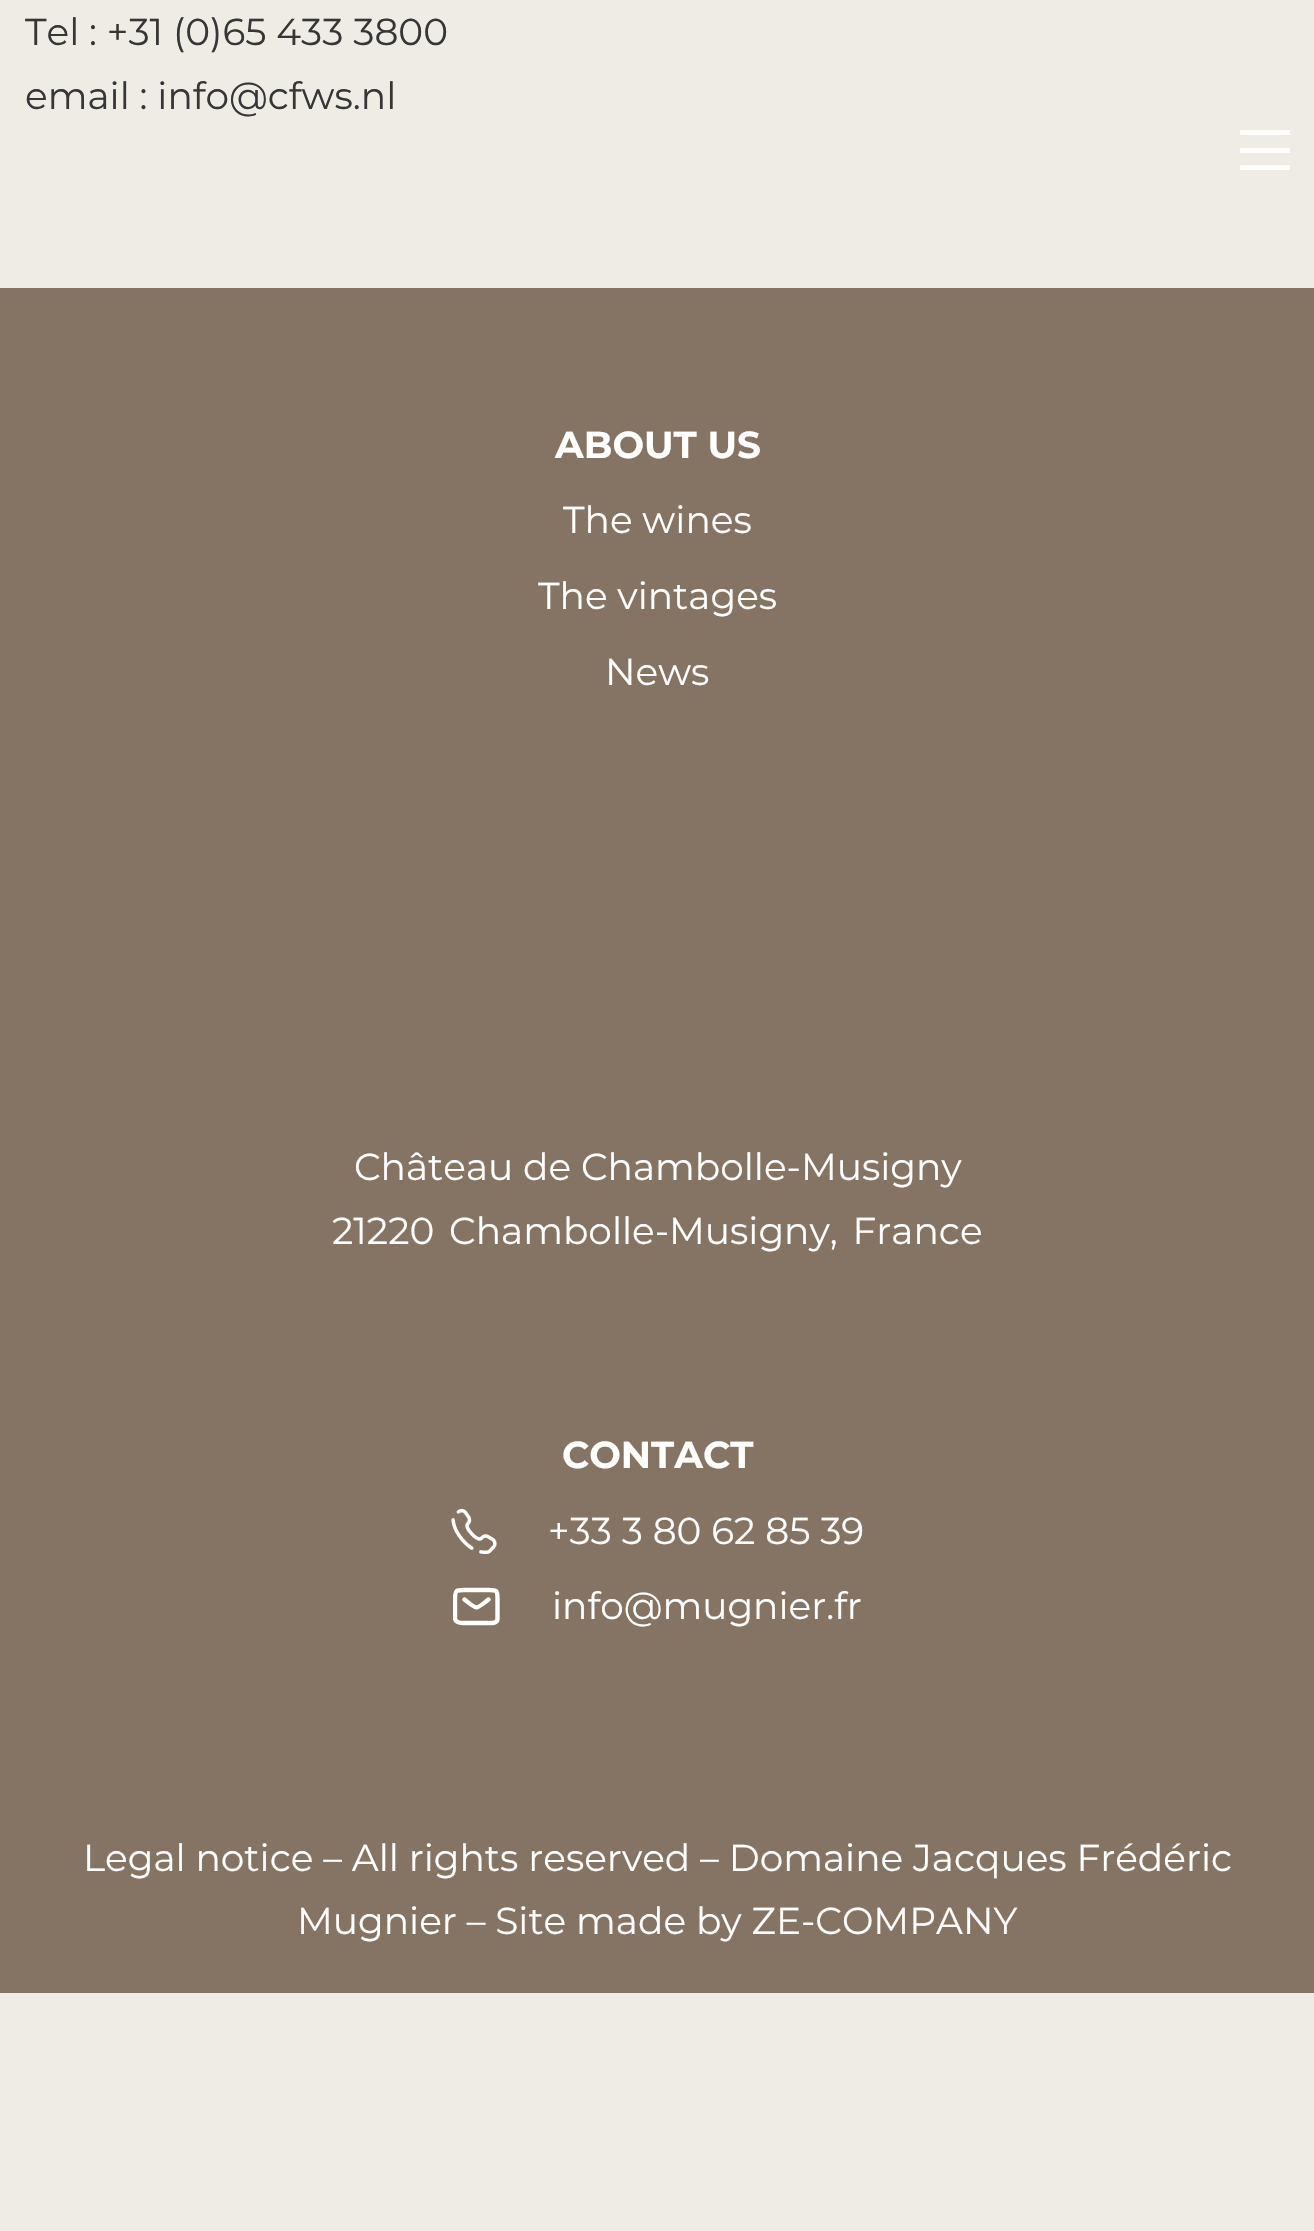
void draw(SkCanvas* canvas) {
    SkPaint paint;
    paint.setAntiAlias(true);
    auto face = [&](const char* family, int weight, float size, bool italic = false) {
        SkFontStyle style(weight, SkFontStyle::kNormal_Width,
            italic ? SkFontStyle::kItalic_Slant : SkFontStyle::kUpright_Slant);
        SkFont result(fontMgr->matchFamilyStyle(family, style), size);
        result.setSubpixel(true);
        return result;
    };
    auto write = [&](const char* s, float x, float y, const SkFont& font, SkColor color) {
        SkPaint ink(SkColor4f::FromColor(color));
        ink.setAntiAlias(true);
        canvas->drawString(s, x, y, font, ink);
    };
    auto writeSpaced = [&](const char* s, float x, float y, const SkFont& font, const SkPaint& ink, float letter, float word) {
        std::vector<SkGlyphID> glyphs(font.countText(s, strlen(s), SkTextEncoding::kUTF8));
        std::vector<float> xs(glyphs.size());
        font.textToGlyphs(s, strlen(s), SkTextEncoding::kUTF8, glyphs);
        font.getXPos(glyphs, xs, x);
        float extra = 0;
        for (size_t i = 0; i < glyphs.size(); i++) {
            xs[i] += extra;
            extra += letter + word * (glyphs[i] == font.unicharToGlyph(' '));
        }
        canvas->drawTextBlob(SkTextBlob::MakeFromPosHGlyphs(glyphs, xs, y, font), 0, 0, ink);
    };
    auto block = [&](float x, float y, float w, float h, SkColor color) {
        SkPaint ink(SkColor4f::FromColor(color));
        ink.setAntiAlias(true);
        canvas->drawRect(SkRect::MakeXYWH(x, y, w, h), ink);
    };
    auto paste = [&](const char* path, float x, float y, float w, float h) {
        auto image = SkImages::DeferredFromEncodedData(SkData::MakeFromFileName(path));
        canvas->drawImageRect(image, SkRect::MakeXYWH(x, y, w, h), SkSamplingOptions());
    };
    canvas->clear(SkColorSetRGB(239, 235, 229));
    auto kFont1 = face("Montserrat", 400, 37.5f);
    write("Tel : +31 (0)65 433 3800", 25, 45, kFont1, SkColorSetRGB(54, 54, 54));
    write("email : info@cfws.nl", 25, 109, kFont1, SkColorSetRGB(54, 54, 54));
    block(1240, 130, 50, 5, SK_ColorWHITE);
    block(1240, 148, 50, 5, SK_ColorWHITE);
    block(1240, 165, 50, 5, SK_ColorWHITE);
    block(0, 288, 1314, 1705, SkColorSetRGB(133, 116, 99));
    auto kFont2 = face("Montserrat", 700, 37.5f);
    write("ABOUT US", 555, 458, kFont2, SK_ColorWHITE);
    write("The wines", 563, 533, kFont1, SK_ColorWHITE);
    write("The vintages", 538, 609, kFont1, SK_ColorWHITE);
    write("News", 605, 685, kFont1, SK_ColorWHITE);
    write("Château de Chambolle-Musigny", 354, 1180, kFont1, SK_ColorWHITE);
    paint.setColor(SK_ColorWHITE);
    writeSpaced("21220 Chambolle-Musigny, France", 332, 1244, kFont1, paint, 0, 5);
    write("CONTACT", 562, 1468, kFont2, SK_ColorWHITE);
    paste("pic1.png", 451, 1508, 46, 47);
    write("+33 3 80 62 85 39", 548, 1544, kFont1, SK_ColorWHITE);
    canvas->save();
    canvas->clipRect(SkRect::MakeXYWH(453, 1583, 50, 47));
    paint.setStyle(SkPaint::kStroke_Style);
    paint.setStrokeWidth(4.4f);
    paint.setStrokeCap(SkPaint::kRound_Cap);
    paint.setStrokeJoin(SkPaint::kRound_Join);
    canvas->drawPath(SkPathBuilder().moveTo(464.5f, 1599.5f).cubicTo(478, 1610, 475, 1610, 488.5f, 1599.5f).moveTo(497.5f, 1618.5f).lineTo(497.5f, 1598.5f).cubicTo(497.5f, 1589.5f, 496, 1590, 487.5f, 1590).lineTo(465.5f, 1590).cubicTo(457, 1590, 455, 1589.5f, 455, 1598.5f).lineTo(455, 1618.5f).cubicTo(455.5f, 1624, 462, 1623, 465.5f, 1623).lineTo(487.5f, 1623).cubicTo(491, 1623, 497.5f, 1624, 497.5f, 1618.5f).close().detach(), paint);
    canvas->restore();
    write("info@mugnier.fr", 552, 1619, kFont1, SK_ColorWHITE);
    write("Legal notice – All rights reserved – Domaine Jacques Frédéric", 83, 1871, kFont1, SK_ColorWHITE);
    write("Mugnier – Site made by ZE-COMPANY", 297, 1934, kFont1, SK_ColorWHITE);
}
